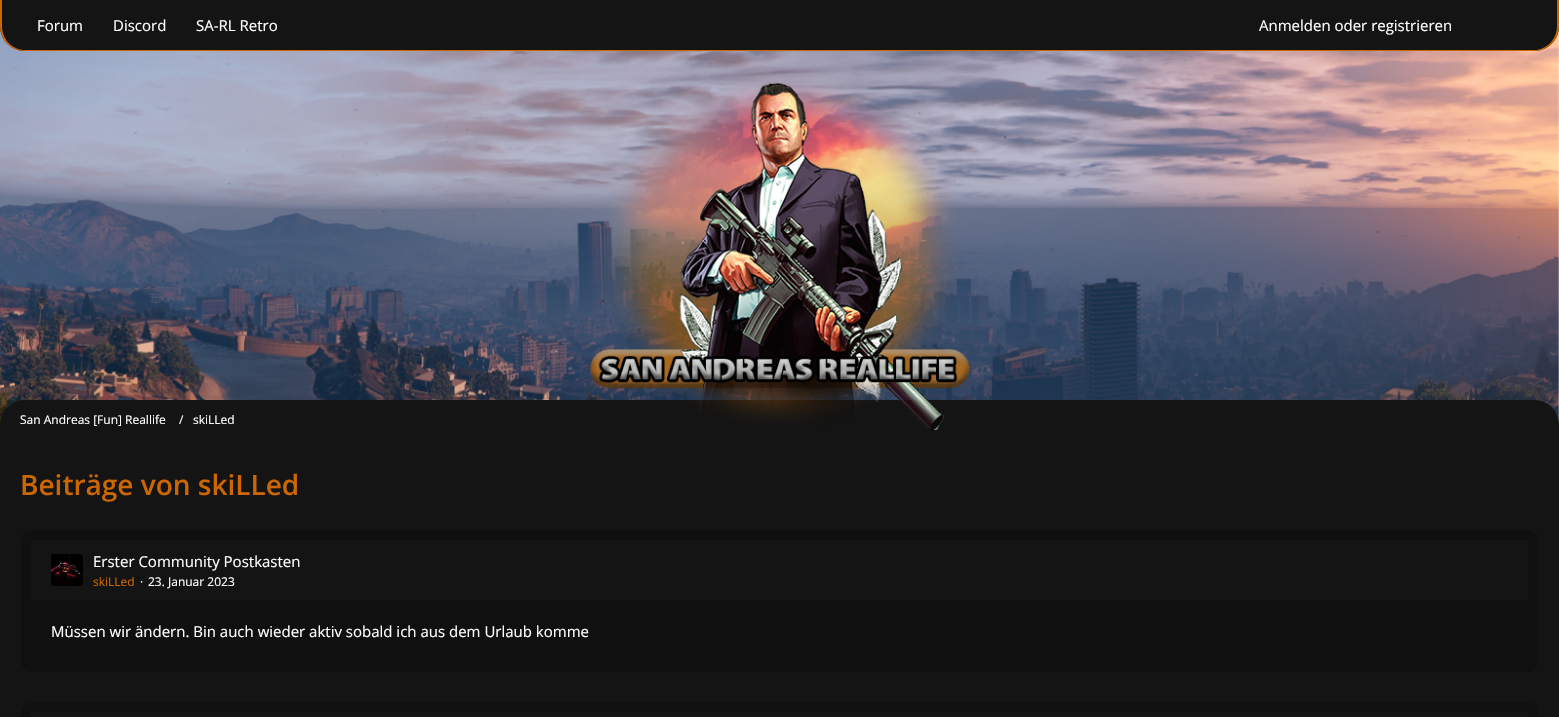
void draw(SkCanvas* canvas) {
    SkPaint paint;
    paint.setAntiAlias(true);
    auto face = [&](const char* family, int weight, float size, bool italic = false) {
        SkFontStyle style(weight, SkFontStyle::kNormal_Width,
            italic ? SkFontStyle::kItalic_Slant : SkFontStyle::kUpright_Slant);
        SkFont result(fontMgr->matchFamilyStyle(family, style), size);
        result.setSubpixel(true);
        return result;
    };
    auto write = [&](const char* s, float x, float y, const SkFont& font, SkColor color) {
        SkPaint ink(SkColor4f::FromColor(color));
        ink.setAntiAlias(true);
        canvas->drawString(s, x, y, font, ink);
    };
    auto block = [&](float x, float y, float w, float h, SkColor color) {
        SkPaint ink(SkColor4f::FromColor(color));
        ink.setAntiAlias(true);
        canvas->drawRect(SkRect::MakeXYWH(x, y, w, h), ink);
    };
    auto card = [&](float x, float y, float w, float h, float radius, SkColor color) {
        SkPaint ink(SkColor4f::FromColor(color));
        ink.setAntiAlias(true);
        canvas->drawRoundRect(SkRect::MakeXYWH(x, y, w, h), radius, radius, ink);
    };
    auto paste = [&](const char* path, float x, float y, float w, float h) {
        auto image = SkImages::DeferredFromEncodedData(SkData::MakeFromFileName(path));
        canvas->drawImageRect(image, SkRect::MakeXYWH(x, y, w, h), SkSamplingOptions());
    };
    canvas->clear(SK_ColorWHITE);
    paste("pic1.png", 0, 26, 1559, 399);
    paint.setColor(SkColorSetRGB(20, 20, 20));
    canvas->drawPath(SkPathBuilder().moveTo(0, 0).lineTo(1559, 0).lineTo(1559, 26).cubicTo(1559, 40, 1548, 51, 1534, 51).lineTo(25, 51).cubicTo(11, 51, 0, 40, 0, 26).close().detach(), paint);
    paint.setColor(SkColorSetRGB(204, 102, 0));
    canvas->drawPath(SkPathBuilder(SkPathFillType::kEvenOdd).moveTo(0, 0).lineTo(1559, 0).lineTo(1559, 26).cubicTo(1559, 40, 1548, 51, 1534, 51).lineTo(25, 51).cubicTo(11, 51, 0, 40, 0, 26).close().moveTo(2, 0).lineTo(1557, 0).lineTo(1557, 26).cubicTo(1557, 39, 1547, 50, 1534, 50).lineTo(25, 50).cubicTo(12, 50, 2, 39, 2, 26).close().detach(), paint);
    block(22, 49, 3, 1, SkColorSetRGB(20, 20, 20));
    auto kFont1 = face("Open Sans", 400, 15);
    write("Forum", 37, 31, kFont1, SK_ColorWHITE);
    write("Discord", 113, 31, kFont1, SK_ColorWHITE);
    write("SA-RL Retro", 196, 31, kFont1, SK_ColorWHITE);
    write("Anmelden oder registrieren", 1259, 31, kFont1, SK_ColorWHITE);
    block(1534, 49, 3, 1, SkColorSetRGB(20, 20, 20));
    paint.setColor(SkColorSetRGB(20, 20, 20));
    canvas->drawPath(SkPathBuilder().moveTo(25, 400).lineTo(1534, 400).cubicTo(1548, 400, 1559, 411, 1559, 425).lineTo(1559, 440).lineTo(0, 440).lineTo(0, 425).cubicTo(0, 411, 11, 400, 25, 400).close().detach(), paint);
    paste("pic2.png", 590, 81, 380, 349);
    auto kFont2 = face("Open Sans", 400, 12);
    write("San Andreas [Fun] Reallife", 20, 424, kFont2, SK_ColorWHITE);
    write("/", 179, 424, kFont2, SK_ColorWHITE);
    write("skiLLed", 193, 424, kFont2, SK_ColorWHITE);
    block(0, 440, 1559, 277, SkColorSetRGB(20, 20, 20));
    auto kFont3 = face("Open Sans", 600, 28);
    write("Beiträge von skiLLed", 20, 495, kFont3, SkColorSetRGB(204, 102, 0));
    card(21, 530, 1517, 142, 10, SkColorSetRGB(16, 16, 16));
    block(31, 540, 1497, 60, SkColorSetRGB(20, 20, 20));
    paste("pic3.png", 51, 554, 32, 32);
    write("Erster Community Postkasten", 93, 567, kFont1, SK_ColorWHITE);
    write("skiLLed", 93, 586, kFont2, SkColorSetRGB(204, 102, 0));
    write("·", 140, 586, kFont2, SK_ColorWHITE);
    write("23. Januar 2023", 148, 586, kFont2, SK_ColorWHITE);
    write("Müssen wir ändern. Bin auch wieder aktiv sobald ich aus dem Urlaub komme", 51, 637, kFont1, SK_ColorWHITE);
    card(21, 702, 1517, 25, 10, SkColorSetRGB(16, 16, 16));
    block(31, 712, 1497, 5, SkColorSetRGB(20, 20, 20));
}
